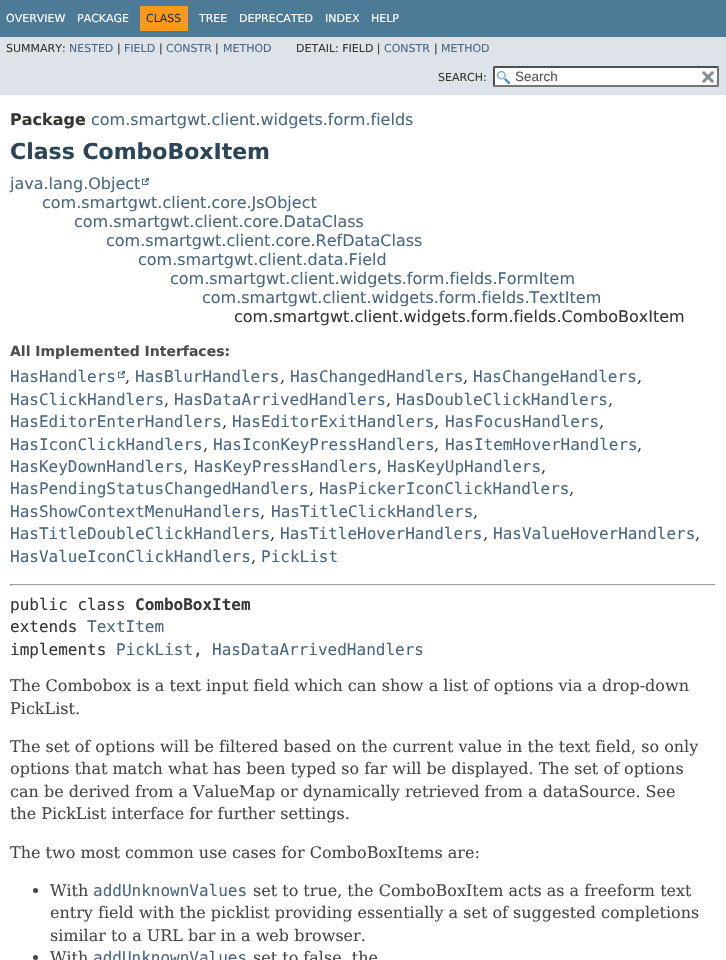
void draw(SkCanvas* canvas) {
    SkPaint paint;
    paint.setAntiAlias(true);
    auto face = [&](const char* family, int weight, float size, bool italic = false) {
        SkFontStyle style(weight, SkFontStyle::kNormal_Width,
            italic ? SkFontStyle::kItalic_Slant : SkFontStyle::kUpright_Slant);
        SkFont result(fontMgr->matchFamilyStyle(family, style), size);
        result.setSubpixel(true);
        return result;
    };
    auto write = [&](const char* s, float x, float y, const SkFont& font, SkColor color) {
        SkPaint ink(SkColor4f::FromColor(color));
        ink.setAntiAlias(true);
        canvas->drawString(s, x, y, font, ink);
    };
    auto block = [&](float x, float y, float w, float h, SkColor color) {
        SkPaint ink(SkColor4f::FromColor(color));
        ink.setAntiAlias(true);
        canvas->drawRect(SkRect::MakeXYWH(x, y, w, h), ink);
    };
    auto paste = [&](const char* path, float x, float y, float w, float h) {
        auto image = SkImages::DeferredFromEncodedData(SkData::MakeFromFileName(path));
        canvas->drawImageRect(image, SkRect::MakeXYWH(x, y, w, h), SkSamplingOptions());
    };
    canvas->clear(SK_ColorWHITE);
    block(0, 0, 726, 37, SkColorSetRGB(77, 122, 151));
    auto kFont1 = face("DejaVu Sans", 400, 11);
    write("OVERVIEW", 6, 22, kFont1, SK_ColorWHITE);
    write("PACKAGE", 77, 22, kFont1, SK_ColorWHITE);
    block(140, 6, 48, 25, SkColorSetRGB(248, 152, 29));
    write("CLASS", 146, 22, kFont1, SkColorSetRGB(37, 52, 65));
    write("TREE", 199, 22, kFont1, SK_ColorWHITE);
    write("DEPRECATED", 239, 22, kFont1, SK_ColorWHITE);
    write("INDEX", 325, 22, kFont1, SK_ColorWHITE);
    write("HELP", 371, 22, kFont1, SK_ColorWHITE);
    block(0, 37, 726, 58, SkColorSetRGB(222, 227, 233));
    write("SUMMARY:", 6, 52, kFont1, SkColorSetRGB(53, 56, 51));
    write("NESTED", 69, 52, kFont1, SkColorSetRGB(74, 103, 130));
    write("|", 117, 52, kFont1, SkColorSetRGB(53, 56, 51));
    write("FIELD", 124, 52, kFont1, SkColorSetRGB(74, 103, 130));
    write("|", 159, 52, kFont1, SkColorSetRGB(53, 56, 51));
    write("CONSTR", 166, 52, kFont1, SkColorSetRGB(74, 103, 130));
    write("|", 215, 52, kFont1, SkColorSetRGB(53, 56, 51));
    write("METHOD", 223, 52, kFont1, SkColorSetRGB(74, 103, 130));
    write("DETAIL: FIELD |", 296, 52, kFont1, SkColorSetRGB(53, 56, 51));
    write("CONSTR", 384, 52, kFont1, SkColorSetRGB(74, 103, 130));
    write("|", 434, 52, kFont1, SkColorSetRGB(53, 56, 51));
    write("METHOD", 441, 52, kFont1, SkColorSetRGB(74, 103, 130));
    write("SEARCH:", 438, 81, kFont1, SkColorSetRGB(53, 56, 51));
    block(493, 66, 226, 21, SK_ColorWHITE);
    paste("pic1.png", 497, 71, 13, 13);
    paint.setColor(SkColorSetRGB(79, 79, 79));
    canvas->drawPath(SkPathBuilder().moveTo(493, 66).lineTo(719, 66).lineTo(717, 68).lineTo(495, 68).close().detach(), paint);
    paint.setColor(SkColorSetRGB(118, 118, 118));
    canvas->drawPath(SkPathBuilder().moveTo(719, 66).lineTo(719, 87).lineTo(717, 85).lineTo(717, 68).close().detach(), paint);
    canvas->drawPath(SkPathBuilder().moveTo(719, 87).lineTo(493, 87).lineTo(495, 85).lineTo(717, 85).close().detach(), paint);
    paint.setColor(SkColorSetRGB(79, 79, 79));
    canvas->drawPath(SkPathBuilder().moveTo(493, 87).lineTo(493, 66).lineTo(495, 68).lineTo(495, 85).close().detach(), paint);
    auto kFont2 = face("Liberation Sans", 400, 13.5f);
    write("Search", 515, 81, kFont2, SkColorSetRGB(84, 84, 84));
    paste("pic2.png", 701, 71, 14, 12);
    auto kFont3 = face("DejaVu Sans", 700, 16);
    write("Package", 10, 125, kFont3, SkColorSetRGB(53, 56, 51));
    auto kFont4 = face("DejaVu Sans", 400, 16);
    write("com.smartgwt.client.widgets.form.fields", 91, 125, kFont4, SkColorSetRGB(74, 103, 130));
    auto kFont5 = face("DejaVu Sans", 700, 22);
    write("Class ComboBoxItem", 10, 159, kFont5, SkColorSetRGB(44, 69, 87));
    write("java.lang.Object", 10, 189, kFont4, SkColorSetRGB(74, 103, 130));
    paste("pic3.png", 142, 178, 7, 7);
    write("com.smartgwt.client.core.JsObject", 42, 208, kFont4, SkColorSetRGB(74, 103, 130));
    write("com.smartgwt.client.core.DataClass", 74, 227, kFont4, SkColorSetRGB(74, 103, 130));
    write("com.smartgwt.client.core.RefDataClass", 106, 246, kFont4, SkColorSetRGB(74, 103, 130));
    write("com.smartgwt.client.data.Field", 138, 265, kFont4, SkColorSetRGB(74, 103, 130));
    write("com.smartgwt.client.widgets.form.fields.FormItem", 170, 284, kFont4, SkColorSetRGB(74, 103, 130));
    write("com.smartgwt.client.widgets.form.fields.TextItem", 202, 303, kFont4, SkColorSetRGB(74, 103, 130));
    write("com.smartgwt.client.widgets.form.fields.ComboBoxItem", 234, 322, kFont4, SkColorSetRGB(53, 56, 51));
    auto kFont6 = face("DejaVu Sans", 700, 14);
    write("All Implemented Interfaces:", 10, 356, kFont6, SkColorSetRGB(78, 78, 78));
    auto kFont7 = face("DejaVu Sans Mono", 400, 16);
    write("HasHandlers", 10, 382, kFont7, SkColorSetRGB(74, 103, 130));
    paste("pic3.png", 118, 371, 7, 7);
    auto kFont8 = face("DejaVu Serif", 400, 16);
    write(",", 125, 382, kFont8, SkColorSetRGB(53, 56, 51));
    write("HasBlurHandlers", 135, 382, kFont7, SkColorSetRGB(74, 103, 130));
    write(",", 280, 382, kFont8, SkColorSetRGB(53, 56, 51));
    write("HasChangedHandlers", 290, 382, kFont7, SkColorSetRGB(74, 103, 130));
    write(",", 463, 382, kFont8, SkColorSetRGB(53, 56, 51));
    write("HasChangeHandlers", 473, 382, kFont7, SkColorSetRGB(74, 103, 130));
    write(",", 637, 382, kFont8, SkColorSetRGB(53, 56, 51));
    write("HasClickHandlers", 10, 405, kFont7, SkColorSetRGB(74, 103, 130));
    write(",", 164, 405, kFont8, SkColorSetRGB(53, 56, 51));
    write("HasDataArrivedHandlers", 174, 405, kFont7, SkColorSetRGB(74, 103, 130));
    write(",", 386, 405, kFont8, SkColorSetRGB(53, 56, 51));
    write("HasDoubleClickHandlers", 396, 405, kFont7, SkColorSetRGB(74, 103, 130));
    write(",", 608, 405, kFont8, SkColorSetRGB(53, 56, 51));
    write("HasEditorEnterHandlers", 10, 427, kFont7, SkColorSetRGB(74, 103, 130));
    write(",", 222, 427, kFont8, SkColorSetRGB(53, 56, 51));
    write("HasEditorExitHandlers", 232, 427, kFont7, SkColorSetRGB(74, 103, 130));
    write(",", 434, 427, kFont8, SkColorSetRGB(53, 56, 51));
    write("HasFocusHandlers", 445, 427, kFont7, SkColorSetRGB(74, 103, 130));
    write(",", 599, 427, kFont8, SkColorSetRGB(53, 56, 51));
    write("HasIconClickHandlers", 10, 450, kFont7, SkColorSetRGB(74, 103, 130));
    write(",", 203, 450, kFont8, SkColorSetRGB(53, 56, 51));
    write("HasIconKeyPressHandlers", 213, 450, kFont7, SkColorSetRGB(74, 103, 130));
    write(",", 434, 450, kFont8, SkColorSetRGB(53, 56, 51));
    write("HasItemHoverHandlers", 445, 450, kFont7, SkColorSetRGB(74, 103, 130));
    write(",", 637, 450, kFont8, SkColorSetRGB(53, 56, 51));
    write("HasKeyDownHandlers", 10, 472, kFont7, SkColorSetRGB(74, 103, 130));
    write(",", 183, 472, kFont8, SkColorSetRGB(53, 56, 51));
    write("HasKeyPressHandlers", 194, 472, kFont7, SkColorSetRGB(74, 103, 130));
    write(",", 377, 472, kFont8, SkColorSetRGB(53, 56, 51));
    write("HasKeyUpHandlers", 387, 472, kFont7, SkColorSetRGB(74, 103, 130));
    write(",", 541, 472, kFont8, SkColorSetRGB(53, 56, 51));
    write("HasPendingStatusChangedHandlers", 10, 494, kFont7, SkColorSetRGB(74, 103, 130));
    write(",", 309, 494, kFont8, SkColorSetRGB(53, 56, 51));
    write("HasPickerIconClickHandlers", 319, 494, kFont7, SkColorSetRGB(74, 103, 130));
    write(",", 569, 494, kFont8, SkColorSetRGB(53, 56, 51));
    write("HasShowContextMenuHandlers", 10, 517, kFont7, SkColorSetRGB(74, 103, 130));
    write(",", 260, 517, kFont8, SkColorSetRGB(53, 56, 51));
    write("HasTitleClickHandlers", 271, 517, kFont7, SkColorSetRGB(74, 103, 130));
    write(",", 473, 517, kFont8, SkColorSetRGB(53, 56, 51));
    write("HasTitleDoubleClickHandlers", 10, 539, kFont7, SkColorSetRGB(74, 103, 130));
    write(",", 270, 539, kFont8, SkColorSetRGB(53, 56, 51));
    write("HasTitleHoverHandlers", 280, 539, kFont7, SkColorSetRGB(74, 103, 130));
    write(",", 483, 539, kFont8, SkColorSetRGB(53, 56, 51));
    write("HasValueHoverHandlers", 493, 539, kFont7, SkColorSetRGB(74, 103, 130));
    write(",", 695, 539, kFont8, SkColorSetRGB(53, 56, 51));
    write("HasValueIconClickHandlers", 10, 562, kFont7, SkColorSetRGB(74, 103, 130));
    write(",", 251, 562, kFont8, SkColorSetRGB(53, 56, 51));
    write("PickList", 261, 562, kFont7, SkColorSetRGB(74, 103, 130));
    block(10, 584, 706, 1, SkColorSetRGB(159, 159, 159));
    block(715, 584, 1, 2, SkColorSetRGB(238, 238, 238));
    block(10, 585, 706, 1, SkColorSetRGB(238, 238, 238));
    block(10, 584, 1, 2, SkColorSetRGB(159, 159, 159));
    write("public class", 10, 610, kFont7, SkColorSetRGB(53, 56, 51));
    auto kFont9 = face("DejaVu Sans Mono", 700, 16);
    write("ComboBoxItem", 135, 610, kFont9, SkColorSetRGB(53, 56, 51));
    write("extends", 10, 632, kFont7, SkColorSetRGB(53, 56, 51));
    write("TextItem", 87, 632, kFont7, SkColorSetRGB(74, 103, 130));
    write("implements", 10, 655, kFont7, SkColorSetRGB(53, 56, 51));
    write("PickList", 116, 655, kFont7, SkColorSetRGB(74, 103, 130));
    write(",", 193, 655, kFont7, SkColorSetRGB(53, 56, 51));
    write("HasDataArrivedHandlers", 212, 655, kFont7, SkColorSetRGB(74, 103, 130));
    write("The Combobox is a text input field which can show a list of options via a drop-down", 10, 691, kFont8, SkColorSetRGB(71, 71, 71));
    write("PickList.", 10, 714, kFont8, SkColorSetRGB(71, 71, 71));
    write("The set of options will be filtered based on the current value in the text field, so only", 10, 752, kFont8, SkColorSetRGB(71, 71, 71));
    write("options that match what has been typed so far will be displayed. The set of options", 10, 774, kFont8, SkColorSetRGB(71, 71, 71));
    write("can be derived from a ValueMap or dynamically retrieved from a dataSource. See", 10, 797, kFont8, SkColorSetRGB(71, 71, 71));
    write("the PickList interface for further settings.", 10, 819, kFont8, SkColorSetRGB(71, 71, 71));
    write("The two most common use cases for ComboBoxItems are:", 10, 858, kFont8, SkColorSetRGB(71, 71, 71));
    paint.setColor(SkColorSetRGB(71, 71, 71));
    canvas->drawCircle(35.5f, 890.5f, 2.5f, paint);
    write("With", 50, 896, kFont8, SkColorSetRGB(71, 71, 71));
    write("addUnknownValues", 93, 896, kFont7, SkColorSetRGB(74, 103, 130));
    write("set to true, the ComboBoxItem acts as a freeform text", 253, 896, kFont8, SkColorSetRGB(71, 71, 71));
    write("entry field with the picklist providing essentially a set of suggested completions", 50, 918, kFont8, SkColorSetRGB(71, 71, 71));
    write("similar to a URL bar in a web browser.", 50, 941, kFont8, SkColorSetRGB(71, 71, 71));
    canvas->drawCircle(35.5f, 957.5f, 2.5f, paint);
    write("With", 50, 963, kFont8, SkColorSetRGB(71, 71, 71));
    write("addUnknownValues", 93, 963, kFont7, SkColorSetRGB(74, 103, 130));
    write("set to false, the", 253, 963, kFont8, SkColorSetRGB(71, 71, 71));
}
